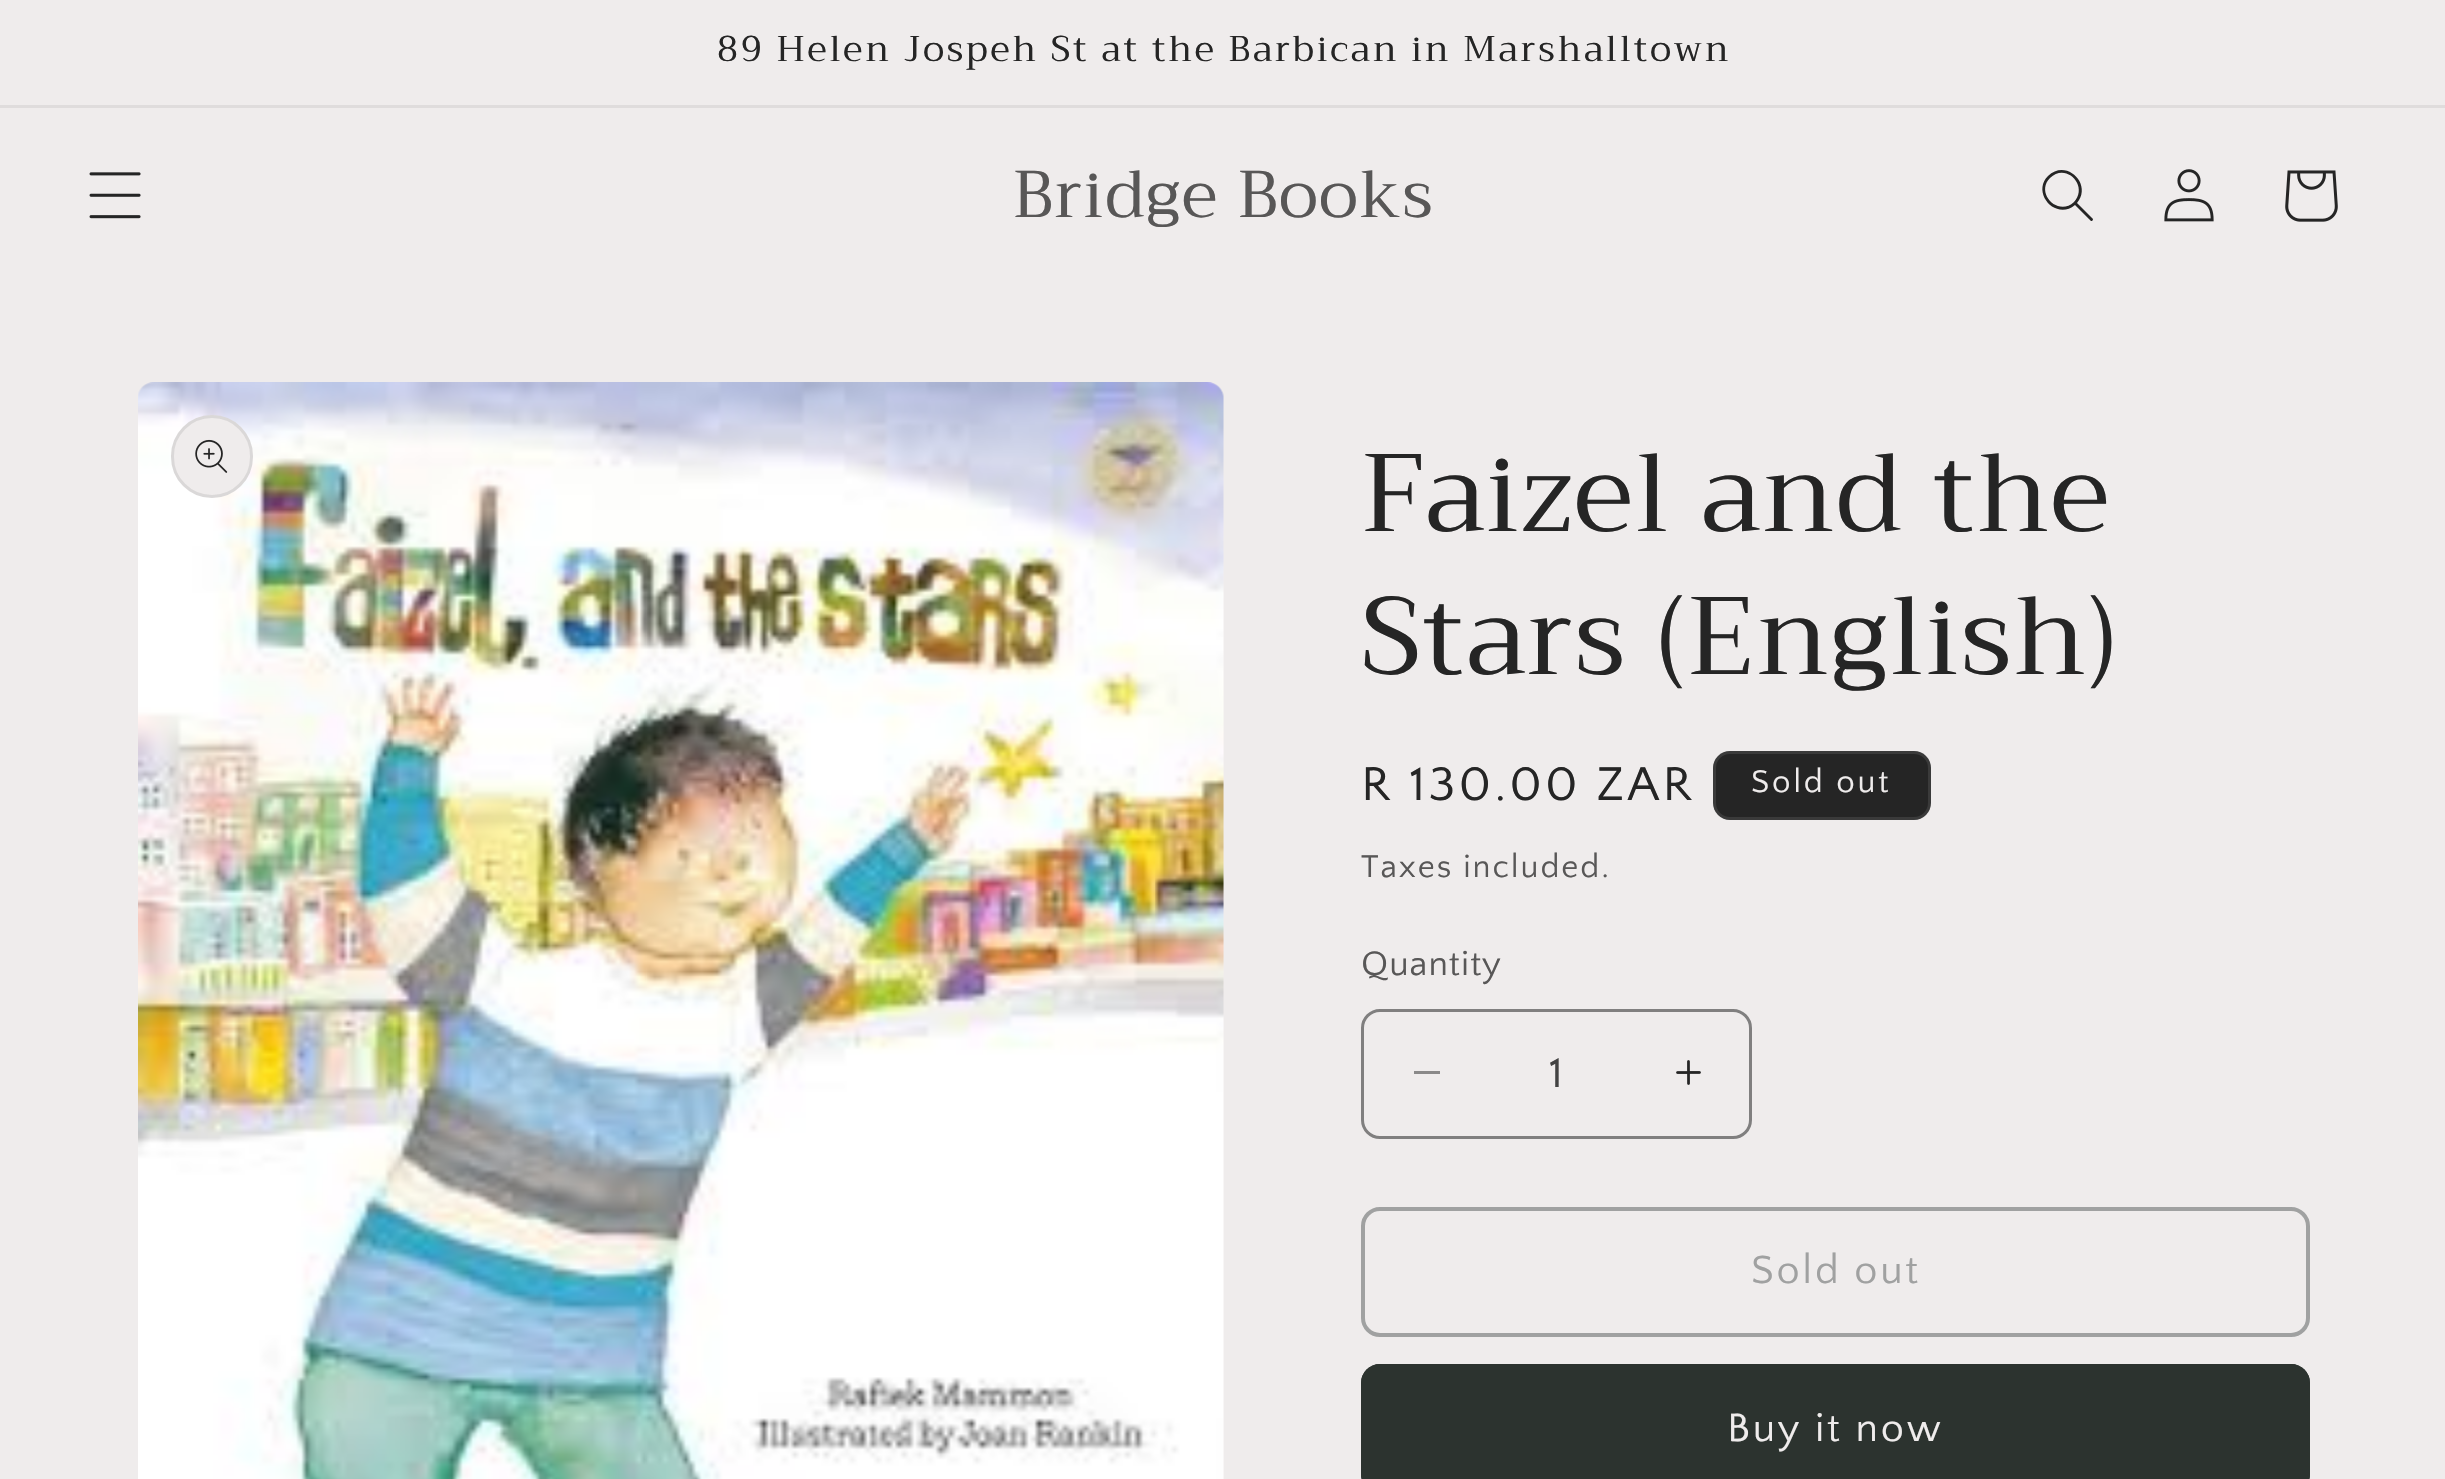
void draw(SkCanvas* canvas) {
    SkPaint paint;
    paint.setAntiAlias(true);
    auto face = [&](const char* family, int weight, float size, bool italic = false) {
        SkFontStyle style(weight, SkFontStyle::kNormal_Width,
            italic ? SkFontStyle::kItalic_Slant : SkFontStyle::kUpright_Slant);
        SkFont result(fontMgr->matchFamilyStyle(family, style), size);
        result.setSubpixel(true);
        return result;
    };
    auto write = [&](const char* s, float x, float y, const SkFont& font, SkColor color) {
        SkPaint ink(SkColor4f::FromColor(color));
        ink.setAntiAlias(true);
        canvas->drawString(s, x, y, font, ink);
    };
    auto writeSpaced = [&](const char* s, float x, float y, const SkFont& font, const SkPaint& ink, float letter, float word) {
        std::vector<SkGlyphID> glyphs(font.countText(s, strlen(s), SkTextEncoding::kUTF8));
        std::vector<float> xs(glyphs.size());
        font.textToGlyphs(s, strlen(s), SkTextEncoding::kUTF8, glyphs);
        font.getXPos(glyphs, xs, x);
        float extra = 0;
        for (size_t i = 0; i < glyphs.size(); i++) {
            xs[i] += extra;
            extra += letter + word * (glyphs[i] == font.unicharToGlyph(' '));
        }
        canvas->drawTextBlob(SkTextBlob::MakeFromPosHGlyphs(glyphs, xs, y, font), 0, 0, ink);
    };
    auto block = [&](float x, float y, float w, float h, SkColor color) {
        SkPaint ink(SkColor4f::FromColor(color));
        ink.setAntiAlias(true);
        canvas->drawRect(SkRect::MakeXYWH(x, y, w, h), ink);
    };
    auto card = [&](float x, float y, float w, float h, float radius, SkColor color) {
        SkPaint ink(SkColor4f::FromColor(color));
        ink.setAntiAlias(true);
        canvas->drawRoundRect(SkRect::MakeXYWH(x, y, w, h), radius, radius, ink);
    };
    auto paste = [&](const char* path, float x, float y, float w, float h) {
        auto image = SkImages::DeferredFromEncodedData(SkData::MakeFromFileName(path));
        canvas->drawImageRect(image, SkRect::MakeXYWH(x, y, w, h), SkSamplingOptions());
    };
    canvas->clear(SkColorSetRGB(239, 236, 236));
    block(0, 105, 2445, 3, SkColorSetRGB(223, 220, 220));
    auto kFont1 = face("Trirong", 400, 35.75f);
    paint.setColor(SkColorSetRGB(37, 37, 37));
    writeSpaced("89 Helen Jospeh St at the Barbican in Marshalltown", 717, 61, kFont1, paint, 2.75f, 0);
    paste("pic1.png", 89, 172, 52, 47);
    auto kFont2 = face("Trirong", 400, 66);
    paint.setColor(SkColorSetRGB(88, 87, 87));
    writeSpaced("Bridge Books", 1013, 217, kFont2, paint, 1.6f, 0);
    paint.setColor(SkColorSetRGB(37, 37, 37));
    canvas->drawPath(SkPathBuilder(SkPathFillType::kEvenOdd).moveTo(2074, 202).cubicTo(2058, 217, 2035, 193, 2050, 178).cubicTo(2066, 162, 2089, 186, 2074, 202).moveTo(2075, 205).cubicTo(2056, 221, 2031, 193, 2048, 176).cubicTo(2066, 158, 2093, 184, 2077, 203).lineTo(2093, 219).cubicTo(2093, 221, 2091, 222, 2090, 220).close().detach(), paint);
    paste("pic2.png", 2164, 169, 50, 53);
    paste("pic3.png", 2285, 170, 53, 52);
    paste("pic4.png", 138, 382, 1086, 1097);
    card(171, 415, 82, 83, 41, SkColorSetRGB(239, 236, 236));
    paint.setStyle(SkPaint::kStroke_Style);
    paint.setStrokeWidth(3);
    paint.setColor(SkColorSetARGB(26, 37, 37, 37));
    canvas->drawRoundRect(SkRect::MakeXYWH(172.5f, 416.5f, 79, 80), 39.5f, 39.5f, paint);
    paste("pic5.png", 195, 439, 33, 34);
    auto kFont3 = face("Trirong", 400, 110);
    paint.setStyle(SkPaint::kFill_Style);
    paint.setColor(SkColorSetRGB(37, 37, 37));
    writeSpaced("Faizel and the", 1361, 531, kFont3, paint, 1.6f, 0);
    writeSpaced("Stars (English)", 1361, 674, kFont3, paint, 1.6f, 0);
    auto kFont4 = face("Quattrocento Sans", 400, 49.5f);
    writeSpaced("R 130.00 ZAR", 1361, 800, kFont4, paint, 3.5f, 0);
    card(1713, 751, 218, 69, 17, SkColorSetRGB(37, 37, 37));
    paint.setStyle(SkPaint::kStroke_Style);
    paint.setColor(SkColorSetARGB(26, 239, 236, 236));
    canvas->drawRoundRect(SkRect::MakeXYWH(1714.5f, 752.5f, 215, 66), 15.5f, 15.5f, paint);
    auto kFont5 = face("Quattrocento Sans", 400, 33);
    paint.setStyle(SkPaint::kFill_Style);
    paint.setColor(SkColorSetRGB(239, 236, 236));
    writeSpaced("Sold out", 1751, 792, kFont5, paint, 2.75f, 0);
    paint.setColor(SkColorSetRGB(88, 87, 87));
    writeSpaced("Taxes included.", 1361, 877, kFont5, paint, 1.9f, 0);
    auto kFont6 = face("Quattrocento Sans", 400, 35.75f);
    writeSpaced("Quantity", 1361, 975, kFont6, paint, 1, 0);
    block(1414, 1071, 26, 3, SkColorSetRGB(138, 137, 137));
    paste("pic6.png", 1676, 1060, 25, 25);
    paint.setStyle(SkPaint::kStroke_Style);
    paint.setColor(SkColorSetRGB(128, 127, 127));
    canvas->drawRoundRect(SkRect::MakeXYWH(1362.5f, 1010.5f, 388, 127), 17.5f, 17.5f, paint);
    auto kFont7 = face("Quattrocento Sans", 400, 44);
    write("1", 1549, 1087, kFont7, SkColorSetRGB(67, 67, 67));
    paint.setStrokeWidth(4);
    paint.setColor(SkColorSetRGB(160, 161, 161));
    canvas->drawRoundRect(SkRect::MakeXYWH(1363, 1209, 945, 126), 17, 17, paint);
    auto kFont8 = face("Quattrocento Sans", 400, 41.25f);
    paint.setStyle(SkPaint::kFill_Style);
    writeSpaced("Sold out", 1751, 1283, kFont8, paint, 2.75f, 0);
    card(1361, 1364, 949, 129, 19, SkColorSetRGB(44, 51, 47));
    paint.setStyle(SkPaint::kStroke_Style);
    paint.setStrokeWidth(3);
    paint.setColor(SkColorSetRGB(44, 51, 47));
    canvas->drawRoundRect(SkRect::MakeXYWH(1362.5f, 1365.5f, 946, 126), 17.5f, 17.5f, paint);
    paint.setStyle(SkPaint::kFill_Style);
    paint.setColor(SkColorSetRGB(239, 236, 236));
    writeSpaced("Buy it now", 1727, 1441, kFont8, paint, 2.75f, 0);
}
